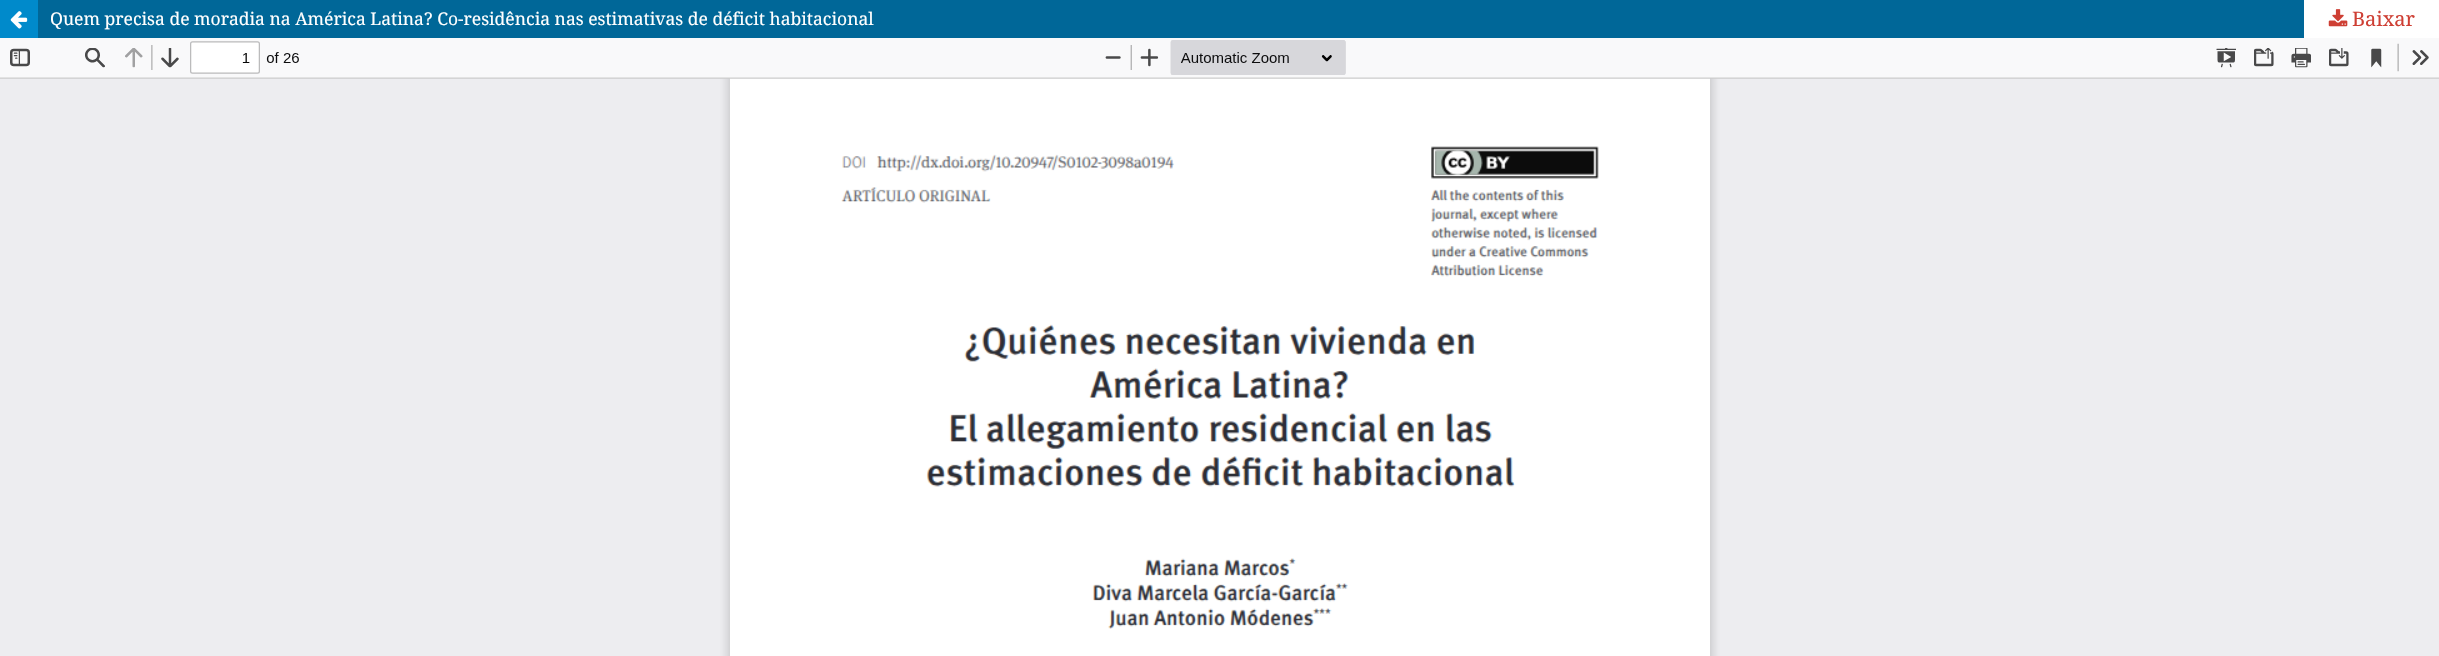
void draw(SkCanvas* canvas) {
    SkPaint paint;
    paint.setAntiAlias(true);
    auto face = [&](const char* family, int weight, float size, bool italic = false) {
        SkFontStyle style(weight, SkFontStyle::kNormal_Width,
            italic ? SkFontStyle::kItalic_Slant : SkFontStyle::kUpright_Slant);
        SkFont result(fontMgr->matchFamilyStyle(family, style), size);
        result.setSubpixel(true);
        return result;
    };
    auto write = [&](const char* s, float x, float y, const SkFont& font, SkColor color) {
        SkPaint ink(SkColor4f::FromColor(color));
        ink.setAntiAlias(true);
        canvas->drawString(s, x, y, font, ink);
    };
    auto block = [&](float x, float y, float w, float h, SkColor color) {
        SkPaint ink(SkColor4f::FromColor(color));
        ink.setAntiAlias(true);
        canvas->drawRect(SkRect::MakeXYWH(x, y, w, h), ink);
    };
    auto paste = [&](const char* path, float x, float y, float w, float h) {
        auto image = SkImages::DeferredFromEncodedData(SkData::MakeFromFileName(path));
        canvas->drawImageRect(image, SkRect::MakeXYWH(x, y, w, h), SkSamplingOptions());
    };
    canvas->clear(SK_ColorWHITE);
    block(38, 0, 2266, 38, SkColorSetRGB(0, 103, 152));
    block(0, 0, 38, 38, SkColorSetRGB(0, 138, 203));
    paste("pic1.png", 10, 11, 18, 18);
    auto kFont1 = face("Noto Serif", 400, 17.5f);
    write("Quem precisa de moradia na América Latina? Co-residência nas estimativas de déficit habitacional", 50, 25, kFont1, SK_ColorWHITE);
    paste("pic2.png", 2328, 9, 20, 18);
    auto kFont2 = face("Noto Serif", 400, 20);
    write("Baixar", 2352, 26, kFont2, SkColorSetRGB(206, 63, 52));
    paste("pic3.png", 0, 38, 2439, 618);
}
